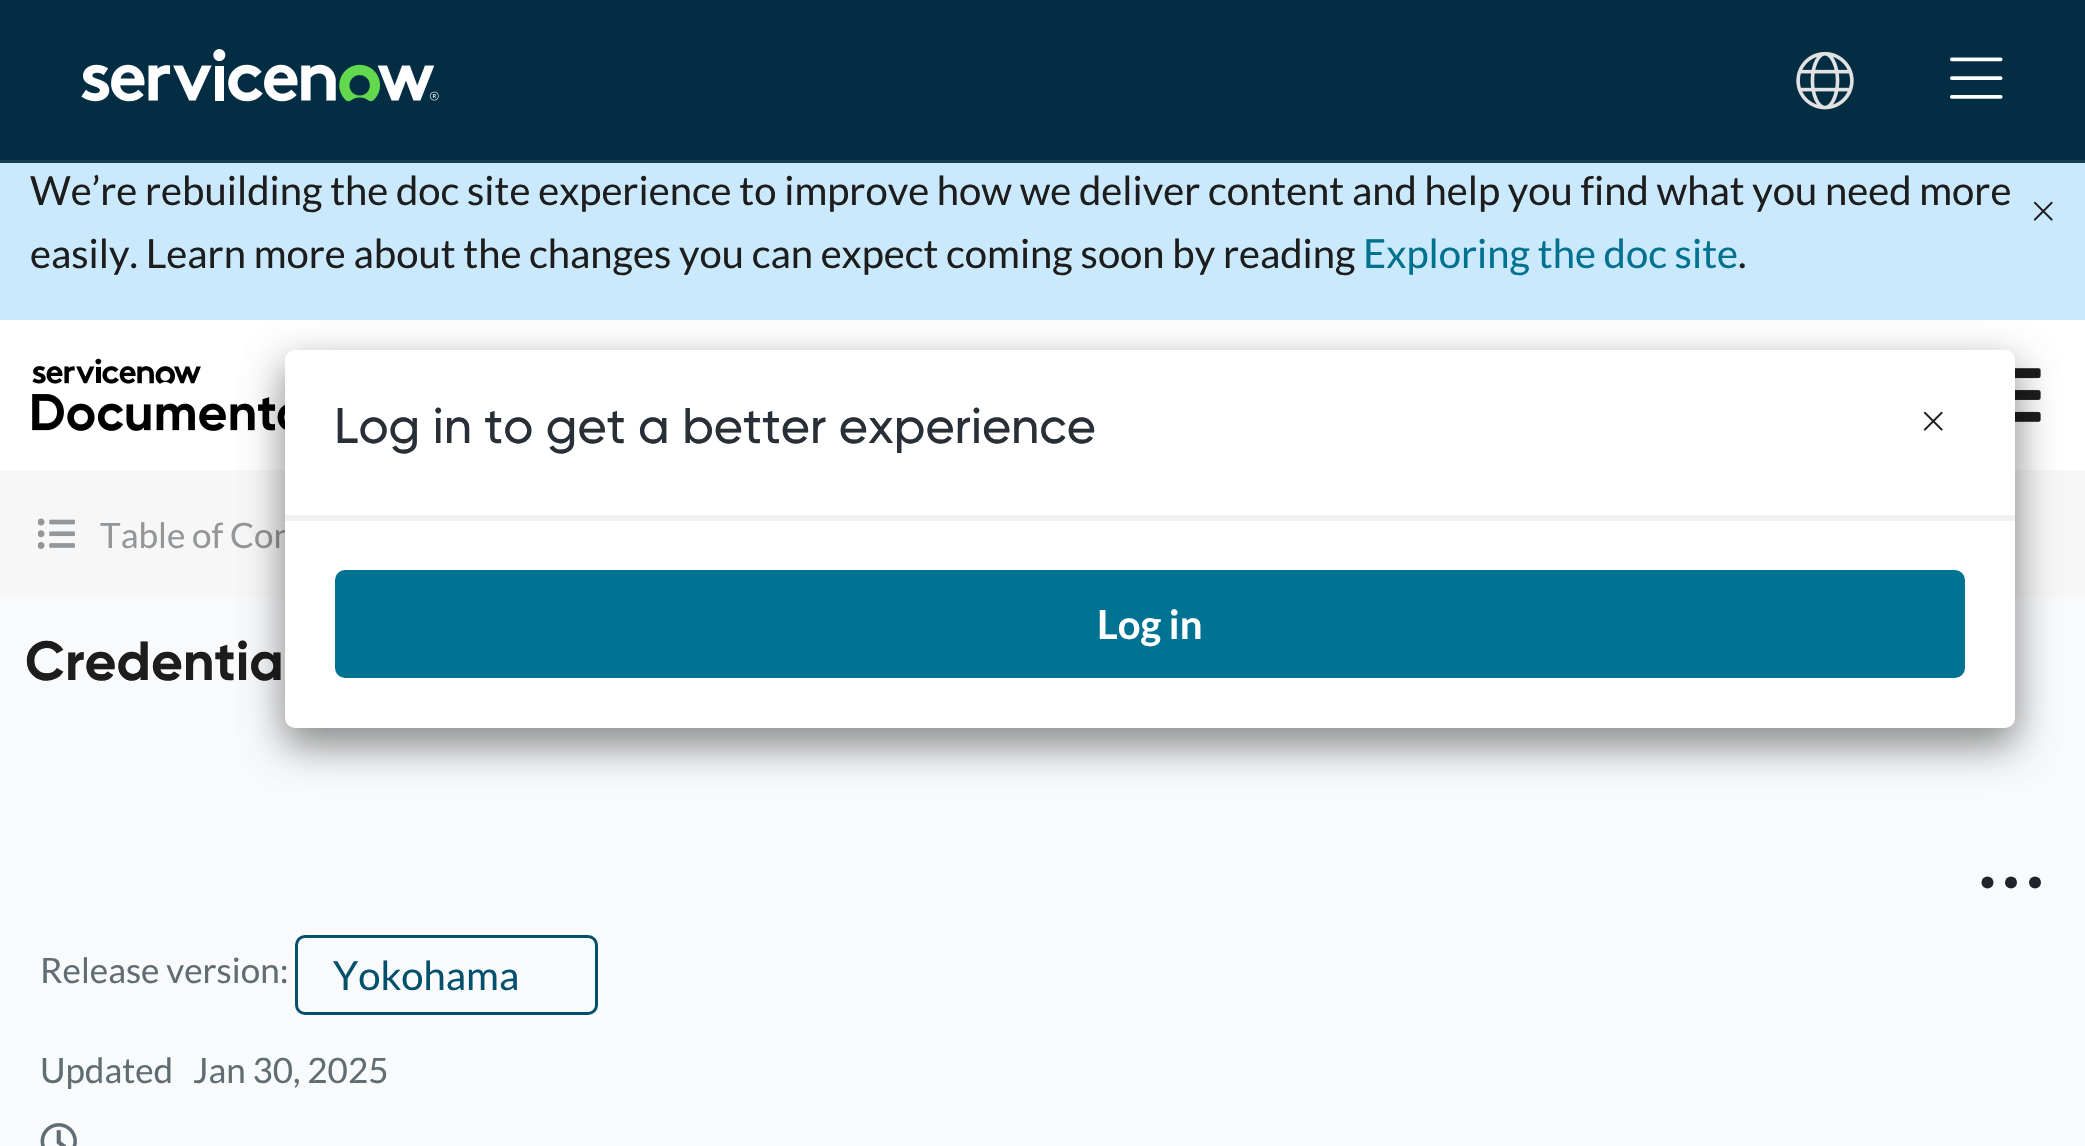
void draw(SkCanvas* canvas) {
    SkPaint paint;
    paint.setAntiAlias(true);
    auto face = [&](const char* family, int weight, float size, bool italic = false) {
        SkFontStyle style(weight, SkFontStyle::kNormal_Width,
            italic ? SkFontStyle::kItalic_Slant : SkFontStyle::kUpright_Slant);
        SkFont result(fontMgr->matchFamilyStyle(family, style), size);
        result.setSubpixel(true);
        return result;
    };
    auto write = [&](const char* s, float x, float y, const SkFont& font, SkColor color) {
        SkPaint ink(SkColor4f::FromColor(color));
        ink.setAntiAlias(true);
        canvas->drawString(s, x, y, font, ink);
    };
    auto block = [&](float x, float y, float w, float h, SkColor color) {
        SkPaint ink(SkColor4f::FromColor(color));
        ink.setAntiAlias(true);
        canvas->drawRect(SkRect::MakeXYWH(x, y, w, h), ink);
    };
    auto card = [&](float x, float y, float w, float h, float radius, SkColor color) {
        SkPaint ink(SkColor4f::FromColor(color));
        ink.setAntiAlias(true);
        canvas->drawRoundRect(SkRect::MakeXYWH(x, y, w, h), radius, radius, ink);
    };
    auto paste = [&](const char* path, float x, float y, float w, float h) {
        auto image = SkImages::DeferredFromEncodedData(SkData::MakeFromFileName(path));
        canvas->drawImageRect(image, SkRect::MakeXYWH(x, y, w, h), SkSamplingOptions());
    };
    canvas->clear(SK_ColorWHITE);
    block(0, 0, 2085, 160, SkColorSetRGB(3, 45, 66));
    block(0, 160, 2085, 3, SkColorSetRGB(23, 62, 81));
    paste("pic1.png", 81, 49, 358, 53);
    paste("pic2.png", 1796, 52, 58, 58);
    paste("pic3.png", 1950, 57, 53, 42);
    block(0, 163, 2085, 157, SkColorSetRGB(203, 233, 252));
    auto kFont1 = face("Lato", 400, 40);
    write("We’re rebuilding the doc site experience to improve how we deliver content and help you find what you need more", 30, 205, kFont1, SkColorSetRGB(29, 29, 29));
    write("easily. Learn more about the changes you can expect coming soon by reading", 30, 268, kFont1, SkColorSetRGB(29, 29, 29));
    write("Exploring the doc site", 1363, 268, kFont1, SkColorSetRGB(0, 113, 143));
    write(".", 1738, 268, kFont1, SkColorSetRGB(29, 29, 29));
    paste("pic4.png", 2033, 201, 20, 20);
    paste("pic5.png", 32, 358, 253, 73);
    paste("pic6.png", 2015, 368, 26, 54);
    block(0, 598, 2085, 548, SkColorSetRGB(248, 250, 252));
    block(0, 470, 2085, 128, SkColorSetRGB(247, 247, 247));
    paste("pic7.png", 38, 518, 37, 31);
    auto kFont2 = face("Lato", 400, 35);
    write("Table of Con", 100, 548, kFont2, SkColorSetRGB(147, 151, 154));
    auto kFont3 = face("Gilroy", 700, 55);
    write("Credentia", 25, 680, kFont3, SkColorSetRGB(29, 29, 29));
    paint.setColor(SkColorSetRGB(33, 37, 41));
    canvas->drawCircle(1987.5f, 882.5f, 6, paint);
    canvas->drawCircle(2011, 882.5f, 6, paint);
    canvas->drawCircle(2035, 882.5f, 6, paint);
    write("Release version:", 40, 983, kFont2, SkColorSetRGB(96, 110, 116));
    paint.setStyle(SkPaint::kStroke_Style);
    paint.setStrokeWidth(3);
    paint.setColor(SkColorSetRGB(2, 80, 107));
    canvas->drawRoundRect(SkRect::MakeXYWH(296.5f, 936.5f, 300, 77), 8.5f, 8.5f, paint);
    write("Yokohama", 333, 990, kFont1, SkColorSetRGB(2, 80, 107));
    write("Updated", 40, 1083, kFont2, SkColorSetRGB(96, 110, 116));
    write("Jan 30, 2025", 193, 1083, kFont2, SkColorSetRGB(96, 110, 116));
    paste("pic8.png", 40, 1123, 37, 23);
    paint.setStyle(SkPaint::kFill_Style);
    paint.setColor(SkColorSetARGB(64, 0, 0, 0));
    paint.setMaskFilter(SkMaskFilter::MakeBlur(kNormal_SkBlurStyle, 19));
    canvas->drawRoundRect(SkRect::MakeXYWH(285, 363, 1730, 377), 10, 10, paint);
    paint.setMaskFilter(nullptr);
    paint.setColor(SkColorSetARGB(69, 0, 0, 0));
    paint.setMaskFilter(SkMaskFilter::MakeBlur(kNormal_SkBlurStyle, 20));
    canvas->drawRoundRect(SkRect::MakeXYWH(285, 370, 1730, 378), 10, 10, paint);
    paint.setMaskFilter(nullptr);
    card(285, 350, 1730, 378, 10, SK_ColorWHITE);
    paint.setColor(SK_ColorWHITE);
    canvas->drawPath(SkPathBuilder().moveTo(295, 350).lineTo(2005, 350).cubicTo(2010.5f, 350, 2015, 354.5f, 2015, 360).lineTo(2015, 518).lineTo(285, 518).lineTo(285, 360).cubicTo(285, 354.5f, 289.5f, 350, 295, 350).close().detach(), paint);
    block(285, 515, 1730, 6, SkColorSetRGB(241, 241, 241));
    auto kFont4 = face("Gilroy", 500, 50);
    write("Log in to get a better experience", 334, 443, kFont4, SkColorSetRGB(40, 47, 54));
    paste("pic9.png", 1923, 411, 20, 20);
    card(335, 570, 1630, 108, 10, SkColorSetRGB(0, 115, 147));
    auto kFont5 = face("Lato", 700, 40);
    write("Log in", 1097, 639, kFont5, SK_ColorWHITE);
}
